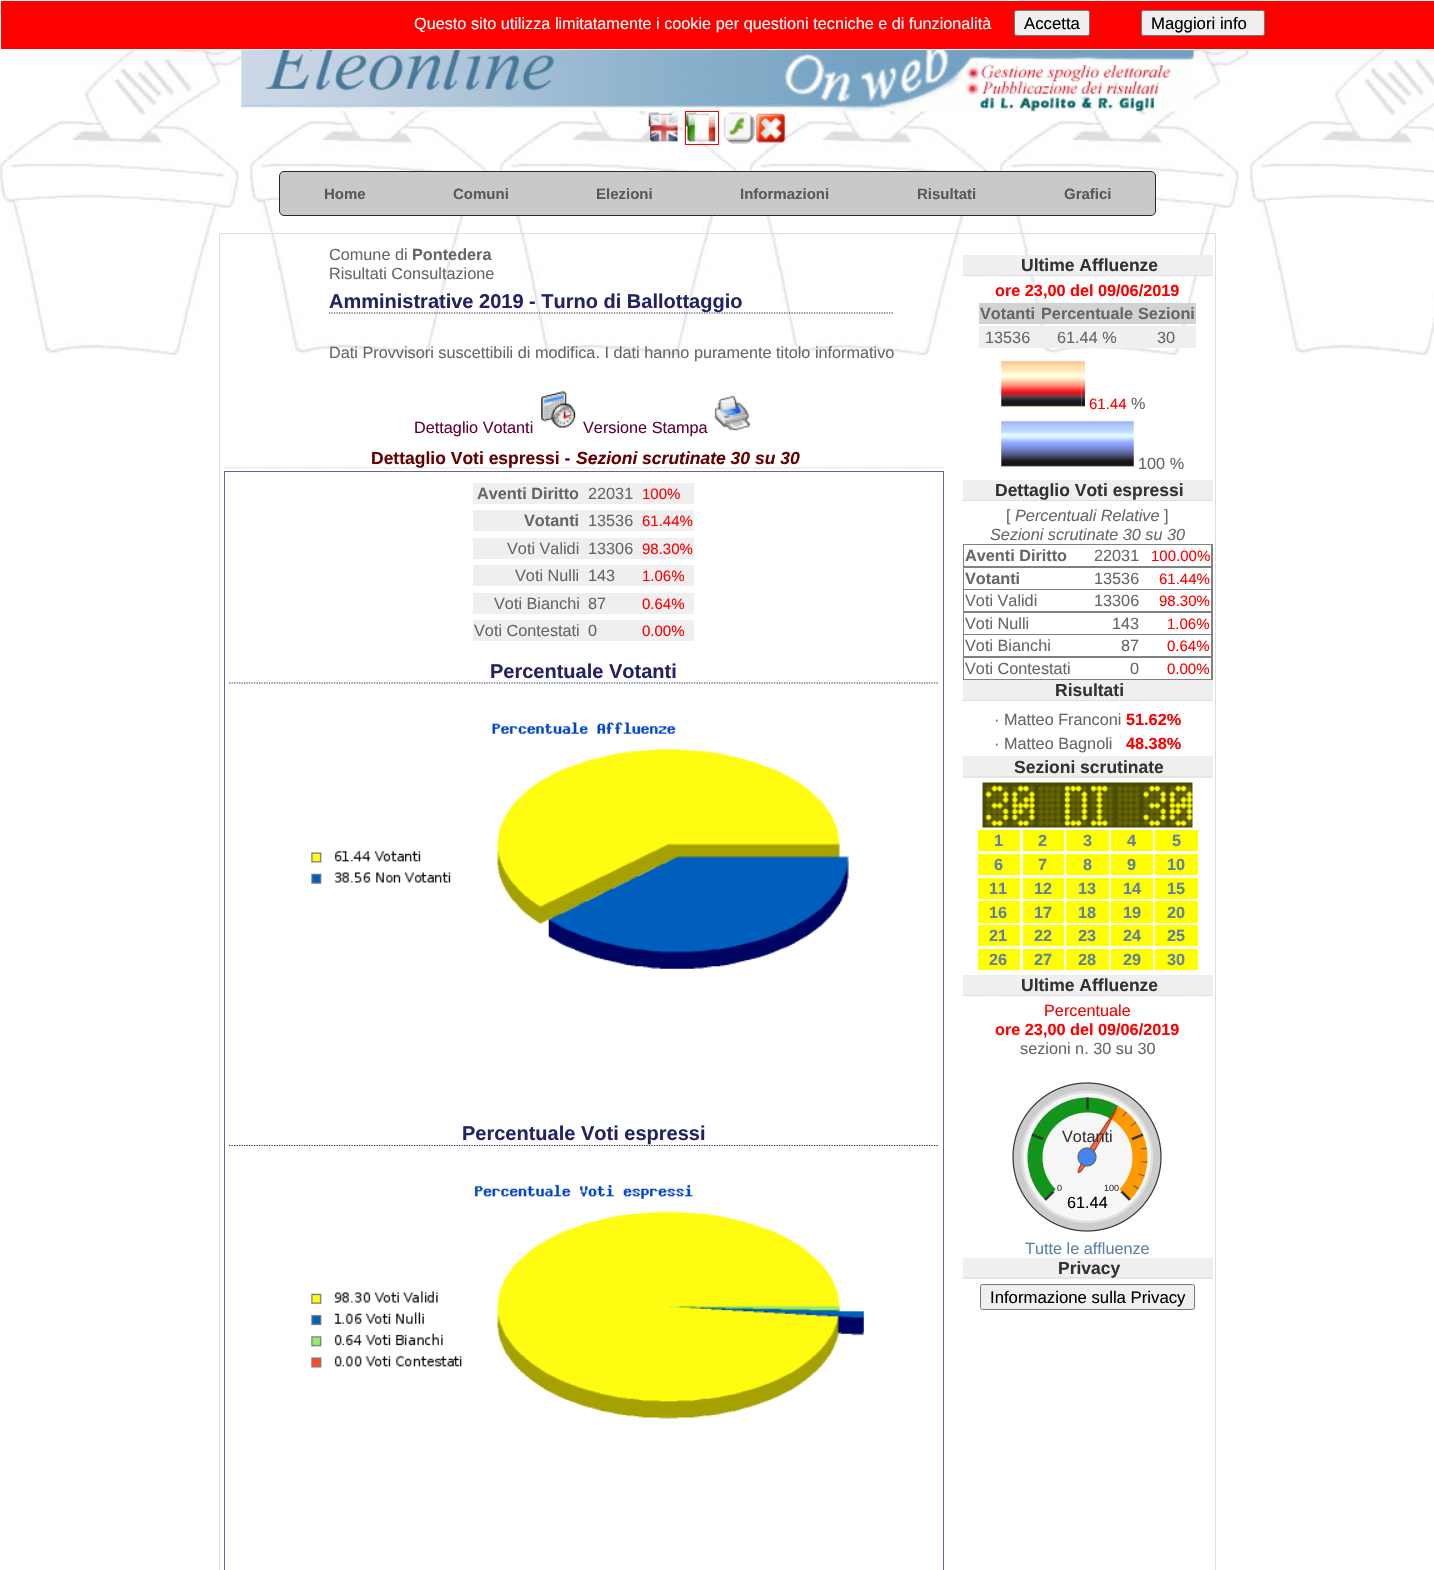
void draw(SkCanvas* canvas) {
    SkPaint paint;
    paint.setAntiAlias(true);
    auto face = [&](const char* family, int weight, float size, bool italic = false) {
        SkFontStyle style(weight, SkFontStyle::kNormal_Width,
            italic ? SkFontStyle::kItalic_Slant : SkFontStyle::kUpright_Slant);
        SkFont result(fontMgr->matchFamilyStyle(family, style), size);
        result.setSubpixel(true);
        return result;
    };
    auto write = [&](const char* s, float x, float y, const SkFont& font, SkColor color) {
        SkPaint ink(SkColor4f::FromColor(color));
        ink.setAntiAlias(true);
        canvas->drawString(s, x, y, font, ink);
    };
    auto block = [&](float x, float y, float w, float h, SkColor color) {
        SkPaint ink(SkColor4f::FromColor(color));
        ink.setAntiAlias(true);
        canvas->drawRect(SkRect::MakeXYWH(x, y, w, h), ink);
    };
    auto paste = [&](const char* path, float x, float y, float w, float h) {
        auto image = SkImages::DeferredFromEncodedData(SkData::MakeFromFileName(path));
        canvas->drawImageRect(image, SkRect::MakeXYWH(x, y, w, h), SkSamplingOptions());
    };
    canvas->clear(SK_ColorWHITE);
    paste("pic1.png", 0, 50, 1434, 305);
    paint.setStyle(SkPaint::kStroke_Style);
    paint.setStrokeWidth(1);
    paint.setColor(SkColorSetRGB(222, 222, 220));
    canvas->drawRect(SkRect::MakeXYWH(219.5f, 233.5f, 996, 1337), paint);
    block(1, 1, 1433, 48, SkColorSetRGB(255, 0, 0));
    auto kFont1 = face("Liberation Sans", 400, 16.25f);
    write("Questo sito utilizza limitatamente i cookie per questioni tecniche e di funzionalità", 414, 29, kFont1, SK_ColorWHITE);
    paint.setStyle(SkPaint::kFill_Style);
    paint.setColor(SkColorSetRGB(239, 239, 239));
    canvas->drawRoundRect(SkRect::MakeXYWH(1014.5f, 10.5f, 75, 25), 2, 2, paint);
    paint.setStyle(SkPaint::kStroke_Style);
    paint.setColor(SkColorSetRGB(118, 118, 118));
    canvas->drawRoundRect(SkRect::MakeXYWH(1014.5f, 10.5f, 75, 25), 2, 2, paint);
    auto kFont2 = face("Liberation Sans", 400, 16.75f);
    write("Accetta", 1024, 29, kFont2, SK_ColorBLACK);
    paint.setStyle(SkPaint::kFill_Style);
    paint.setColor(SkColorSetRGB(239, 239, 239));
    canvas->drawRoundRect(SkRect::MakeXYWH(1141.5f, 10.5f, 123, 25), 2, 2, paint);
    paint.setStyle(SkPaint::kStroke_Style);
    paint.setColor(SkColorSetRGB(118, 118, 118));
    canvas->drawRoundRect(SkRect::MakeXYWH(1141.5f, 10.5f, 123, 25), 2, 2, paint);
    write("Maggiori info", 1151, 29, kFont2, SK_ColorBLACK);
    block(963, 255, 250, 21, SkColorSetRGB(239, 239, 239));
    paint.setStrokeWidth(1.2f);
    paint.setColor(SkColorSetRGB(204, 204, 204));
    paint.setPathEffect(SkDashPathEffect::Make({{1.25f, 1.25f}}, 0));
    canvas->drawPath(SkPathBuilder().moveTo(962.5f, 275.5f).lineTo(1212.5f, 275.5f).detach(), paint);
    paint.setPathEffect(nullptr);
    auto kFont3 = face("Liberation Sans", 700, 17.5f);
    write("Ultime Affluenze", 1021, 271, kFont3, SkColorSetRGB(51, 51, 51));
    auto kFont4 = face("Liberation Sans", 700, 16.25f);
    write("ore 23,00 del 09/06/2019", 995, 296, kFont4, SkColorSetRGB(255, 0, 0));
    block(979, 303, 217, 21, SkColorSetRGB(210, 210, 210));
    write("Votanti", 980, 319, kFont4, SkColorSetRGB(102, 102, 102));
    write("Percentuale", 1041, 319, kFont4, SkColorSetRGB(102, 102, 102));
    write("Sezioni", 1138, 319, kFont4, SkColorSetRGB(102, 102, 102));
    block(979, 326, 217, 22, SkColorSetRGB(239, 239, 239));
    write("13536", 985, 343, kFont1, SkColorSetRGB(102, 102, 102));
    write("61.44 %", 1057, 343, kFont1, SkColorSetRGB(102, 102, 102));
    write("30", 1157, 343, kFont1, SkColorSetRGB(102, 102, 102));
    paste("pic2.png", 1001, 359, 4, 49);
    paste("pic3.png", 1005, 359, 77, 49);
    paste("pic4.png", 1081, 359, 4, 49);
    auto kFont5 = face("Liberation Sans", 400, 15);
    write("61.44", 1089, 409, kFont5, SkColorSetRGB(255, 0, 0));
    write("%", 1131, 409, kFont1, SkColorSetRGB(102, 102, 102));
    paste("pic5.png", 1001, 420, 4, 48);
    paste("pic6.png", 1005, 420, 125, 48);
    paste("pic7.png", 1130, 420, 4, 48);
    write("100 %", 1138, 469, kFont1, SkColorSetRGB(102, 102, 102));
    block(963, 480, 250, 21, SkColorSetRGB(239, 239, 239));
    paint.setPathEffect(SkDashPathEffect::Make({{1.25f, 1.25f}}, 0));
    canvas->drawPath(SkPathBuilder().moveTo(962.5f, 500.5f).lineTo(1212.5f, 500.5f).detach(), paint);
    paint.setPathEffect(nullptr);
    write("Dettaglio Voti espressi", 995, 496, kFont3, SkColorSetRGB(51, 51, 51));
    write("[", 1006, 521, kFont1, SkColorSetRGB(102, 102, 102));
    auto kFont6 = face("Liberation Sans", 400, 16.25f, true);
    write("Percentuali Relative", 1015, 521, kFont6, SkColorSetRGB(102, 102, 102));
    write("]", 1164, 521, kFont1, SkColorSetRGB(102, 102, 102));
    write("Sezioni scrutinate 30 su 30", 990, 540, kFont6, SkColorSetRGB(102, 102, 102));
    block(963, 544, 250, 136, SkColorSetRGB(128, 128, 128));
    block(964, 545, 247, 21, SK_ColorWHITE);
    write("Aventi Diritto", 965, 561, kFont4, SkColorSetRGB(102, 102, 102));
    write("22031", 1094, 561, kFont1, SkColorSetRGB(102, 102, 102));
    write("100.00%", 1151, 561, kFont5, SkColorSetRGB(255, 0, 0));
    block(964, 568, 247, 21, SK_ColorWHITE);
    write("Votanti", 965, 584, kFont4, SkColorSetRGB(102, 102, 102));
    write("13536", 1094, 584, kFont1, SkColorSetRGB(102, 102, 102));
    write("61.44%", 1159, 584, kFont5, SkColorSetRGB(255, 0, 0));
    block(964, 590, 247, 21, SK_ColorWHITE);
    write("Voti Validi", 965, 606, kFont1, SkColorSetRGB(102, 102, 102));
    write("13306", 1094, 606, kFont1, SkColorSetRGB(102, 102, 102));
    write("98.30%", 1159, 606, kFont5, SkColorSetRGB(255, 0, 0));
    block(964, 613, 247, 21, SK_ColorWHITE);
    write("Voti Nulli", 965, 629, kFont1, SkColorSetRGB(102, 102, 102));
    write("143", 1112, 629, kFont1, SkColorSetRGB(102, 102, 102));
    write("1.06%", 1167, 629, kFont5, SkColorSetRGB(255, 0, 0));
    block(964, 635, 247, 21, SK_ColorWHITE);
    write("Voti Bianchi", 965, 651, kFont1, SkColorSetRGB(102, 102, 102));
    write("87", 1121, 651, kFont1, SkColorSetRGB(102, 102, 102));
    write("0.64%", 1167, 651, kFont5, SkColorSetRGB(255, 0, 0));
    block(964, 658, 247, 21, SK_ColorWHITE);
    write("Voti Contestati", 965, 674, kFont1, SkColorSetRGB(102, 102, 102));
    write("0", 1130, 674, kFont1, SkColorSetRGB(102, 102, 102));
    write("0.00%", 1167, 674, kFont5, SkColorSetRGB(255, 0, 0));
    block(963, 680, 250, 21, SkColorSetRGB(239, 239, 239));
    paint.setPathEffect(SkDashPathEffect::Make({{1.25f, 1.25f}}, 0));
    canvas->drawPath(SkPathBuilder().moveTo(962.5f, 700.5f).lineTo(1212.5f, 700.5f).detach(), paint);
    paint.setPathEffect(nullptr);
    write("Risultati", 1055, 696, kFont3, SkColorSetRGB(51, 51, 51));
    write("·", 994, 725, kFont1, SkColorSetRGB(102, 102, 102));
    write("Matteo Franconi", 1004, 725, kFont1, SkColorSetRGB(102, 102, 102));
    write("51.62%", 1126, 725, kFont4, SkColorSetRGB(255, 0, 0));
    write("·", 994, 749, kFont1, SkColorSetRGB(102, 102, 102));
    write("Matteo Bagnoli", 1004, 749, kFont1, SkColorSetRGB(102, 102, 102));
    write("48.38%", 1126, 749, kFont4, SkColorSetRGB(255, 0, 0));
    block(963, 756, 250, 22, SkColorSetRGB(239, 239, 239));
    paint.setPathEffect(SkDashPathEffect::Make({{1.25f, 1.25f}}, 0));
    canvas->drawPath(SkPathBuilder().moveTo(962.5f, 777).lineTo(1212.5f, 777).detach(), paint);
    paint.setPathEffect(nullptr);
    write("Sezioni scrutinate", 1014, 773, kFont3, SkColorSetRGB(51, 51, 51));
    paste("pic8.png", 982, 782, 211, 46);
    block(978, 830, 42, 21, SkColorSetRGB(255, 255, 0));
    write("1", 994, 846, kFont4, SkColorSetRGB(93, 129, 166));
    block(1023, 830, 41, 21, SkColorSetRGB(255, 255, 0));
    write("2", 1038, 846, kFont4, SkColorSetRGB(93, 129, 166));
    block(1066, 830, 43, 21, SkColorSetRGB(255, 255, 0));
    write("3", 1083, 846, kFont4, SkColorSetRGB(93, 129, 166));
    block(1111, 830, 42, 21, SkColorSetRGB(255, 255, 0));
    write("4", 1127, 846, kFont4, SkColorSetRGB(93, 129, 166));
    block(1155, 830, 43, 21, SkColorSetRGB(255, 255, 0));
    write("5", 1172, 846, kFont4, SkColorSetRGB(93, 129, 166));
    block(978, 854, 42, 21, SkColorSetRGB(255, 255, 0));
    write("6", 994, 870, kFont4, SkColorSetRGB(93, 129, 166));
    block(1023, 854, 41, 21, SkColorSetRGB(255, 255, 0));
    write("7", 1038, 870, kFont4, SkColorSetRGB(93, 129, 166));
    block(1066, 854, 43, 21, SkColorSetRGB(255, 255, 0));
    write("8", 1083, 870, kFont4, SkColorSetRGB(93, 129, 166));
    block(1111, 854, 42, 21, SkColorSetRGB(255, 255, 0));
    write("9", 1127, 870, kFont4, SkColorSetRGB(93, 129, 166));
    block(1155, 854, 43, 21, SkColorSetRGB(255, 255, 0));
    write("10", 1167, 870, kFont4, SkColorSetRGB(93, 129, 166));
    block(978, 878, 42, 21, SkColorSetRGB(255, 255, 0));
    write("11", 989, 894, kFont4, SkColorSetRGB(93, 129, 166));
    block(1023, 878, 41, 21, SkColorSetRGB(255, 255, 0));
    write("12", 1034, 894, kFont4, SkColorSetRGB(93, 129, 166));
    block(1066, 878, 43, 21, SkColorSetRGB(255, 255, 0));
    write("13", 1078, 894, kFont4, SkColorSetRGB(93, 129, 166));
    block(1111, 878, 42, 21, SkColorSetRGB(255, 255, 0));
    write("14", 1123, 894, kFont4, SkColorSetRGB(93, 129, 166));
    block(1155, 878, 43, 21, SkColorSetRGB(255, 255, 0));
    write("15", 1167, 894, kFont4, SkColorSetRGB(93, 129, 166));
    block(978, 901, 42, 22, SkColorSetRGB(255, 255, 0));
    write("16", 989, 918, kFont4, SkColorSetRGB(93, 129, 166));
    block(1023, 901, 41, 22, SkColorSetRGB(255, 255, 0));
    write("17", 1034, 918, kFont4, SkColorSetRGB(93, 129, 166));
    block(1066, 901, 43, 22, SkColorSetRGB(255, 255, 0));
    write("18", 1078, 918, kFont4, SkColorSetRGB(93, 129, 166));
    block(1111, 901, 42, 22, SkColorSetRGB(255, 255, 0));
    write("19", 1123, 918, kFont4, SkColorSetRGB(93, 129, 166));
    block(1155, 901, 43, 22, SkColorSetRGB(255, 255, 0));
    write("20", 1167, 918, kFont4, SkColorSetRGB(93, 129, 166));
    block(978, 925, 42, 21, SkColorSetRGB(255, 255, 0));
    write("21", 989, 941, kFont4, SkColorSetRGB(93, 129, 166));
    block(1023, 925, 41, 21, SkColorSetRGB(255, 255, 0));
    write("22", 1034, 941, kFont4, SkColorSetRGB(93, 129, 166));
    block(1066, 925, 43, 21, SkColorSetRGB(255, 255, 0));
    write("23", 1078, 941, kFont4, SkColorSetRGB(93, 129, 166));
    block(1111, 925, 42, 21, SkColorSetRGB(255, 255, 0));
    write("24", 1123, 941, kFont4, SkColorSetRGB(93, 129, 166));
    block(1155, 925, 43, 21, SkColorSetRGB(255, 255, 0));
    write("25", 1167, 941, kFont4, SkColorSetRGB(93, 129, 166));
    block(978, 949, 42, 21, SkColorSetRGB(255, 255, 0));
    write("26", 989, 965, kFont4, SkColorSetRGB(93, 129, 166));
    block(1023, 949, 41, 21, SkColorSetRGB(255, 255, 0));
    write("27", 1034, 965, kFont4, SkColorSetRGB(93, 129, 166));
    block(1066, 949, 43, 21, SkColorSetRGB(255, 255, 0));
    write("28", 1078, 965, kFont4, SkColorSetRGB(93, 129, 166));
    block(1111, 949, 42, 21, SkColorSetRGB(255, 255, 0));
    write("29", 1123, 965, kFont4, SkColorSetRGB(93, 129, 166));
    block(1155, 949, 43, 21, SkColorSetRGB(255, 255, 0));
    write("30", 1167, 965, kFont4, SkColorSetRGB(93, 129, 166));
    block(963, 975, 250, 21, SkColorSetRGB(239, 239, 239));
    paint.setPathEffect(SkDashPathEffect::Make({{1.25f, 1.25f}}, 0));
    canvas->drawPath(SkPathBuilder().moveTo(962.5f, 995.5f).lineTo(1212.5f, 995.5f).detach(), paint);
    paint.setPathEffect(nullptr);
    write("Ultime Affluenze", 1021, 991, kFont3, SkColorSetRGB(51, 51, 51));
    write("Percentuale", 1044, 1016, kFont1, SkColorSetRGB(255, 0, 0));
    write("ore 23,00 del 09/06/2019", 995, 1035, kFont4, SkColorSetRGB(255, 0, 0));
    write("sezioni n. 30 su 30", 1020, 1054, kFont1, SkColorSetRGB(102, 102, 102));
    paste("pic9.png", 1012, 1082, 150, 150);
    write("Votanti", 1062, 1142, kFont1, SkColorSetRGB(51, 51, 51));
    auto kFont7 = face("Liberation Sans", 400, 9);
    write("0", 1057, 1191, kFont7, SkColorSetRGB(51, 51, 51));
    write("100", 1104, 1191, kFont7, SkColorSetRGB(51, 51, 51));
    write("61.44", 1067, 1208, kFont1, SK_ColorBLACK);
    write("Tutte le affluenze", 1025, 1254, kFont1, SkColorSetRGB(93, 129, 166));
    block(963, 1258, 250, 21, SkColorSetRGB(239, 239, 239));
    paint.setPathEffect(SkDashPathEffect::Make({{1.25f, 1.25f}}, 0));
    canvas->drawPath(SkPathBuilder().moveTo(962.5f, 1278).lineTo(1212.5f, 1278).detach(), paint);
    paint.setPathEffect(nullptr);
    write("Privacy", 1058, 1274, kFont3, SkColorSetRGB(51, 51, 51));
    paint.setStyle(SkPaint::kFill_Style);
    paint.setColor(SkColorSetRGB(239, 239, 239));
    canvas->drawRoundRect(SkRect::MakeXYWH(980.5f, 1284.5f, 214, 25), 2, 2, paint);
    paint.setStyle(SkPaint::kStroke_Style);
    paint.setStrokeWidth(1);
    paint.setColor(SkColorSetRGB(118, 118, 118));
    canvas->drawRoundRect(SkRect::MakeXYWH(980.5f, 1284.5f, 214, 25), 2, 2, paint);
    write("Informazione sulla Privacy", 990, 1303, kFont2, SK_ColorBLACK);
    write("Comune di", 329, 260, kFont1, SkColorSetRGB(102, 102, 102));
    write("Pontedera", 412, 260, kFont4, SkColorSetRGB(102, 102, 102));
    write("Risultati Consultazione", 329, 279, kFont1, SkColorSetRGB(102, 102, 102));
    paint.setStrokeWidth(1.2f);
    paint.setColor(SkColorSetRGB(34, 34, 102));
    paint.setPathEffect(SkDashPathEffect::Make({{1.25f, 1.25f}}, 0));
    canvas->drawPath(SkPathBuilder().moveTo(329, 313).lineTo(894, 313).detach(), paint);
    paint.setPathEffect(nullptr);
    auto kFont8 = face("Liberation Sans", 700, 20);
    write("Amministrative 2019 - Turno di Ballottaggio", 329, 308, kFont8, SkColorSetRGB(34, 34, 102));
    write("Dati Provvisori suscettibili di modifica. I dati hanno puramente titolo informativo", 329, 358, kFont1, SkColorSetRGB(102, 102, 102));
    write("Dettaglio Votanti", 414, 433, kFont1, SkColorSetRGB(102, 0, 51));
    paste("pic10.png", 541, 391, 35, 37);
    write("Versione Stampa", 583, 433, kFont1, SkColorSetRGB(102, 0, 51));
    paste("pic11.png", 714, 395, 37, 36);
    paint.setColor(SkColorSetRGB(204, 204, 204));
    paint.setPathEffect(SkDashPathEffect::Make({{1.25f, 1.25f}}, 0));
    canvas->drawPath(SkPathBuilder().moveTo(224, 468).lineTo(944, 468).detach(), paint);
    paint.setPathEffect(nullptr);
    write("Dettaglio Voti espressi -", 371, 464, kFont3, SkColorSetRGB(102, 0, 0));
    auto kFont9 = face("Liberation Sans", 700, 17.5f, true);
    write("Sezioni scrutinate 30 su 30", 576, 464, kFont9, SkColorSetRGB(102, 0, 0));
    paint.setStrokeWidth(1);
    paint.setColor(SkColorSetRGB(102, 102, 153));
    canvas->drawRect(SkRect::MakeXYWH(224.5f, 471.5f, 719, 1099), paint);
    block(473, 483, 221, 21, SkColorSetRGB(239, 239, 239));
    write("Aventi Diritto", 477, 499, kFont4, SkColorSetRGB(102, 102, 102));
    write("22031", 588, 499, kFont1, SkColorSetRGB(102, 102, 102));
    write("100%", 642, 499, kFont5, SkColorSetRGB(255, 0, 0));
    block(473, 510, 221, 21, SkColorSetRGB(239, 239, 239));
    write("Votanti", 524, 526, kFont4, SkColorSetRGB(102, 102, 102));
    write("13536", 588, 526, kFont1, SkColorSetRGB(102, 102, 102));
    write("61.44%", 642, 526, kFont5, SkColorSetRGB(255, 0, 0));
    block(473, 538, 221, 21, SkColorSetRGB(239, 239, 239));
    write("Voti Validi", 507, 554, kFont1, SkColorSetRGB(102, 102, 102));
    write("13306", 588, 554, kFont1, SkColorSetRGB(102, 102, 102));
    write("98.30%", 642, 554, kFont5, SkColorSetRGB(255, 0, 0));
    block(473, 565, 221, 21, SkColorSetRGB(239, 239, 239));
    write("Voti Nulli", 515, 581, kFont1, SkColorSetRGB(102, 102, 102));
    write("143", 588, 581, kFont1, SkColorSetRGB(102, 102, 102));
    write("1.06%", 642, 581, kFont5, SkColorSetRGB(255, 0, 0));
    block(473, 593, 221, 21, SkColorSetRGB(239, 239, 239));
    write("Voti Bianchi", 494, 609, kFont1, SkColorSetRGB(102, 102, 102));
    write("87", 588, 609, kFont1, SkColorSetRGB(102, 102, 102));
    write("0.64%", 642, 609, kFont5, SkColorSetRGB(255, 0, 0));
    block(473, 620, 221, 21, SkColorSetRGB(239, 239, 239));
    write("Voti Contestati", 474, 636, kFont1, SkColorSetRGB(102, 102, 102));
    write("0", 588, 636, kFont1, SkColorSetRGB(102, 102, 102));
    write("0.00%", 642, 636, kFont5, SkColorSetRGB(255, 0, 0));
    paint.setStrokeWidth(1.2f);
    paint.setColor(SkColorSetRGB(34, 34, 102));
    paint.setPathEffect(SkDashPathEffect::Make({{1.25f, 1.25f}}, 0));
    canvas->drawPath(SkPathBuilder().moveTo(229, 683).lineTo(939, 683).detach(), paint);
    paint.setPathEffect(nullptr);
    write("Percentuale Votanti", 490, 678, kFont8, SkColorSetRGB(34, 34, 102));
    paste("pic12.png", 311, 722, 538, 247);
    paint.setPathEffect(SkDashPathEffect::Make({{1.25f, 1.25f}}, 0));
    canvas->drawPath(SkPathBuilder().moveTo(229, 1145.5f).lineTo(939, 1145.5f).detach(), paint);
    paint.setPathEffect(nullptr);
    write("Percentuale Voti espressi", 462, 1140, kFont8, SkColorSetRGB(34, 34, 102));
    paste("pic13.png", 311, 1184, 553, 235);
    paste("pic14.png", 241, 50, 953, 62);
    paste("pic15.png", 648, 112, 30, 30);
    paint.setStrokeWidth(1);
    paint.setColor(SkColorSetRGB(255, 0, 0));
    canvas->drawRect(SkRect::MakeXYWH(685.5f, 111.5f, 33, 33), paint);
    paste("pic16.png", 686, 112, 30, 30);
    paste("pic17.png", 723, 112, 32, 32);
    paste("pic18.png", 756, 113, 30, 30);
    paint.setStyle(SkPaint::kFill_Style);
    paint.setColor(SkColorSetRGB(201, 201, 201));
    canvas->drawRoundRect(SkRect::MakeXYWH(279.5f, 171.5f, 876, 44), 4.5f, 4.5f, paint);
    paint.setStyle(SkPaint::kStroke_Style);
    paint.setColor(SkColorSetRGB(30, 42, 54));
    canvas->drawRoundRect(SkRect::MakeXYWH(279.5f, 171.5f, 876, 44), 4.5f, 4.5f, paint);
    auto kFont10 = face("Liberation Sans", 700, 15);
    write("Home", 324, 199, kFont10, SkColorSetRGB(95, 87, 87));
    write("Comuni", 453, 199, kFont10, SkColorSetRGB(95, 87, 87));
    write("Elezioni", 596, 199, kFont10, SkColorSetRGB(95, 87, 87));
    write("Informazioni", 740, 199, kFont10, SkColorSetRGB(95, 87, 87));
    write("Risultati", 917, 199, kFont10, SkColorSetRGB(95, 87, 87));
    write("Grafici", 1064, 199, kFont10, SkColorSetRGB(95, 87, 87));
}
